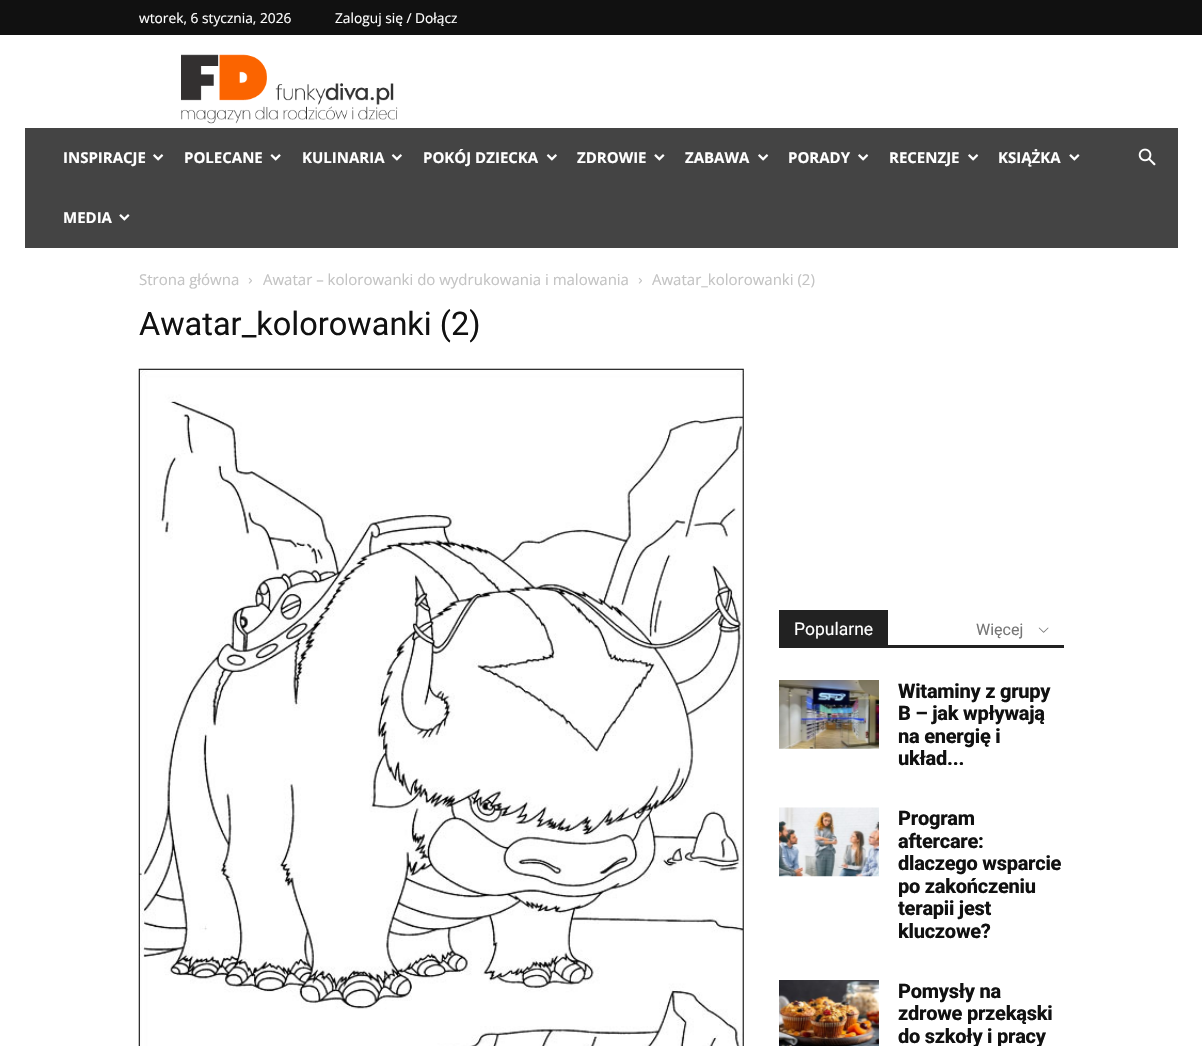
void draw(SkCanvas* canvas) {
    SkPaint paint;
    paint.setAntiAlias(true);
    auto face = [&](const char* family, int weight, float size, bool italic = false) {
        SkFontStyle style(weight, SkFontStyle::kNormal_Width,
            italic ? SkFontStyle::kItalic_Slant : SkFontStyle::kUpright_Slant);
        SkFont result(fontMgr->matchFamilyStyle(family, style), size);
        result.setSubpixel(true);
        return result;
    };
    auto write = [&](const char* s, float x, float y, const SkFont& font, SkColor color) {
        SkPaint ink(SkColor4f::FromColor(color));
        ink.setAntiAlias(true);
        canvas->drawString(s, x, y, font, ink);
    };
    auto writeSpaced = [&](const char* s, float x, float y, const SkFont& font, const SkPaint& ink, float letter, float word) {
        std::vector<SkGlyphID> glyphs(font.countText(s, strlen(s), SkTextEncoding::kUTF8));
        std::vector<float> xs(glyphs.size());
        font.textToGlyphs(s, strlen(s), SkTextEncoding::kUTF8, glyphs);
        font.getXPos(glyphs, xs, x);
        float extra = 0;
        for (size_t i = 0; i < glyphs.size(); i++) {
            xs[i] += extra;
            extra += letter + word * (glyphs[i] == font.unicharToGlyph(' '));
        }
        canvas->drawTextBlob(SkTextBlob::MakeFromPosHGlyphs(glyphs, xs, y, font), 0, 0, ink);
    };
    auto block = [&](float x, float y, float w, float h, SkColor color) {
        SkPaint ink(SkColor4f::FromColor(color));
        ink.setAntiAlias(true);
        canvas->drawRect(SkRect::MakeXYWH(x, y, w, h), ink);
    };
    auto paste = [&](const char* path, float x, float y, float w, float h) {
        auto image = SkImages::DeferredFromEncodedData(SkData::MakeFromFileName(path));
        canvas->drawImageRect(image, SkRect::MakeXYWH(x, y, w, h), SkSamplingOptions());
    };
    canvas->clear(SK_ColorWHITE);
    block(0, 0, 1202, 35, SkColorSetRGB(17, 17, 17));
    auto kFont1 = face("Open Sans", 400, 13.75f);
    write("wtorek, 6 stycznia, 2026", 139, 23, kFont1, SK_ColorWHITE);
    write("Zaloguj się / Dołącz", 335, 23, kFont1, SK_ColorWHITE);
    paste("pic1.png", 181, 54, 217, 70);
    block(25, 128, 1153, 120, SkColorSetRGB(68, 68, 68));
    auto kFont2 = face("Open Sans", 700, 15);
    write("INSPIRACJE", 63, 163, kFont2, SK_ColorWHITE);
    paste("pic2.png", 153, 154, 11, 7);
    write("POLECANE", 184, 163, kFont2, SK_ColorWHITE);
    paste("pic3.png", 270, 154, 11, 7);
    write("KULINARIA", 302, 163, kFont2, SK_ColorWHITE);
    paste("pic4.png", 391, 154, 11, 7);
    write("POKÓJ DZIECKA", 423, 163, kFont2, SK_ColorWHITE);
    paste("pic4.png", 546, 154, 11, 7);
    write("ZDROWIE", 577, 163, kFont2, SK_ColorWHITE);
    paste("pic5.png", 654, 154, 11, 7);
    write("ZABAWA", 685, 163, kFont2, SK_ColorWHITE);
    paste("pic2.png", 758, 154, 11, 7);
    write("PORADY", 788, 163, kFont2, SK_ColorWHITE);
    paste("pic2.png", 858, 154, 11, 7);
    write("RECENZJE", 889, 163, kFont2, SK_ColorWHITE);
    paste("pic2.png", 968, 154, 11, 7);
    write("KSIĄŻKA", 998, 163, kFont2, SK_ColorWHITE);
    paste("pic5.png", 1069, 154, 11, 7);
    write("MEDIA", 63, 223, kFont2, SK_ColorWHITE);
    paste("pic5.png", 119, 214, 11, 7);
    paste("pic6.png", 1138, 148, 18, 18);
    auto kFont3 = face("Open Sans", 400, 15);
    write("Strona główna", 139, 285, kFont3, SkColorSetRGB(195, 195, 195));
    paste("pic7.png", 248, 277, 4, 7);
    write("Awatar – kolorowanki do wydrukowania i malowania", 263, 285, kFont3, SkColorSetRGB(195, 195, 195));
    paste("pic7.png", 638, 277, 4, 7);
    write("Awatar_kolorowanki (2)", 652, 285, kFont3, SkColorSetRGB(195, 195, 195));
    auto kFont4 = face("Roboto", 400, 32.5f);
    write("Awatar_kolorowanki (2)", 139, 335, kFont4, SkColorSetRGB(17, 17, 17));
    paste("pic8.png", 138, 368, 606, 678);
    block(779, 645, 285, 3, SkColorSetRGB(34, 34, 34));
    block(779, 610, 109, 35, SkColorSetRGB(34, 34, 34));
    auto kFont5 = face("Roboto", 400, 17.5f);
    write("Popularne", 794, 635, kFont5, SK_ColorWHITE);
    auto kFont6 = face("Roboto", 400, 16);
    write("Więcej", 976, 635, kFont6, SkColorSetRGB(118, 118, 118));
    paste("pic9.png", 1038, 627, 11, 6);
    paste("pic10.png", 779, 680, 100, 69);
    auto kFont7 = face("Roboto", 800, 20);
    paint.setColor(SkColorSetRGB(17, 17, 17));
    writeSpaced("Witaminy z grupy", 898, 698, kFont7, paint, -0.25f, 0);
    writeSpaced("B – jak wpływają", 898, 720, kFont7, paint, -0.25f, 0);
    writeSpaced("na energię i", 898, 743, kFont7, paint, -0.25f, 0);
    writeSpaced("układ...", 898, 765, kFont7, paint, -0.25f, 0);
    paste("pic11.png", 779, 807, 100, 70);
    writeSpaced("Program", 898, 825, kFont7, paint, -0.25f, 0);
    writeSpaced("aftercare:", 898, 848, kFont7, paint, -0.25f, 0);
    writeSpaced("dlaczego wsparcie", 898, 870, kFont7, paint, -0.25f, 0);
    writeSpaced("po zakończeniu", 898, 893, kFont7, paint, -0.25f, 0);
    writeSpaced("terapii jest", 898, 915, kFont7, paint, -0.25f, 0);
    writeSpaced("kluczowe?", 898, 938, kFont7, paint, -0.25f, 0);
    paste("pic12.png", 779, 980, 100, 66);
    writeSpaced("Pomysły na", 898, 998, kFont7, paint, -0.25f, 0);
    writeSpaced("zdrowe przekąski", 898, 1020, kFont7, paint, -0.25f, 0);
    writeSpaced("do szkoły i pracy", 898, 1043, kFont7, paint, -0.25f, 0);
}
